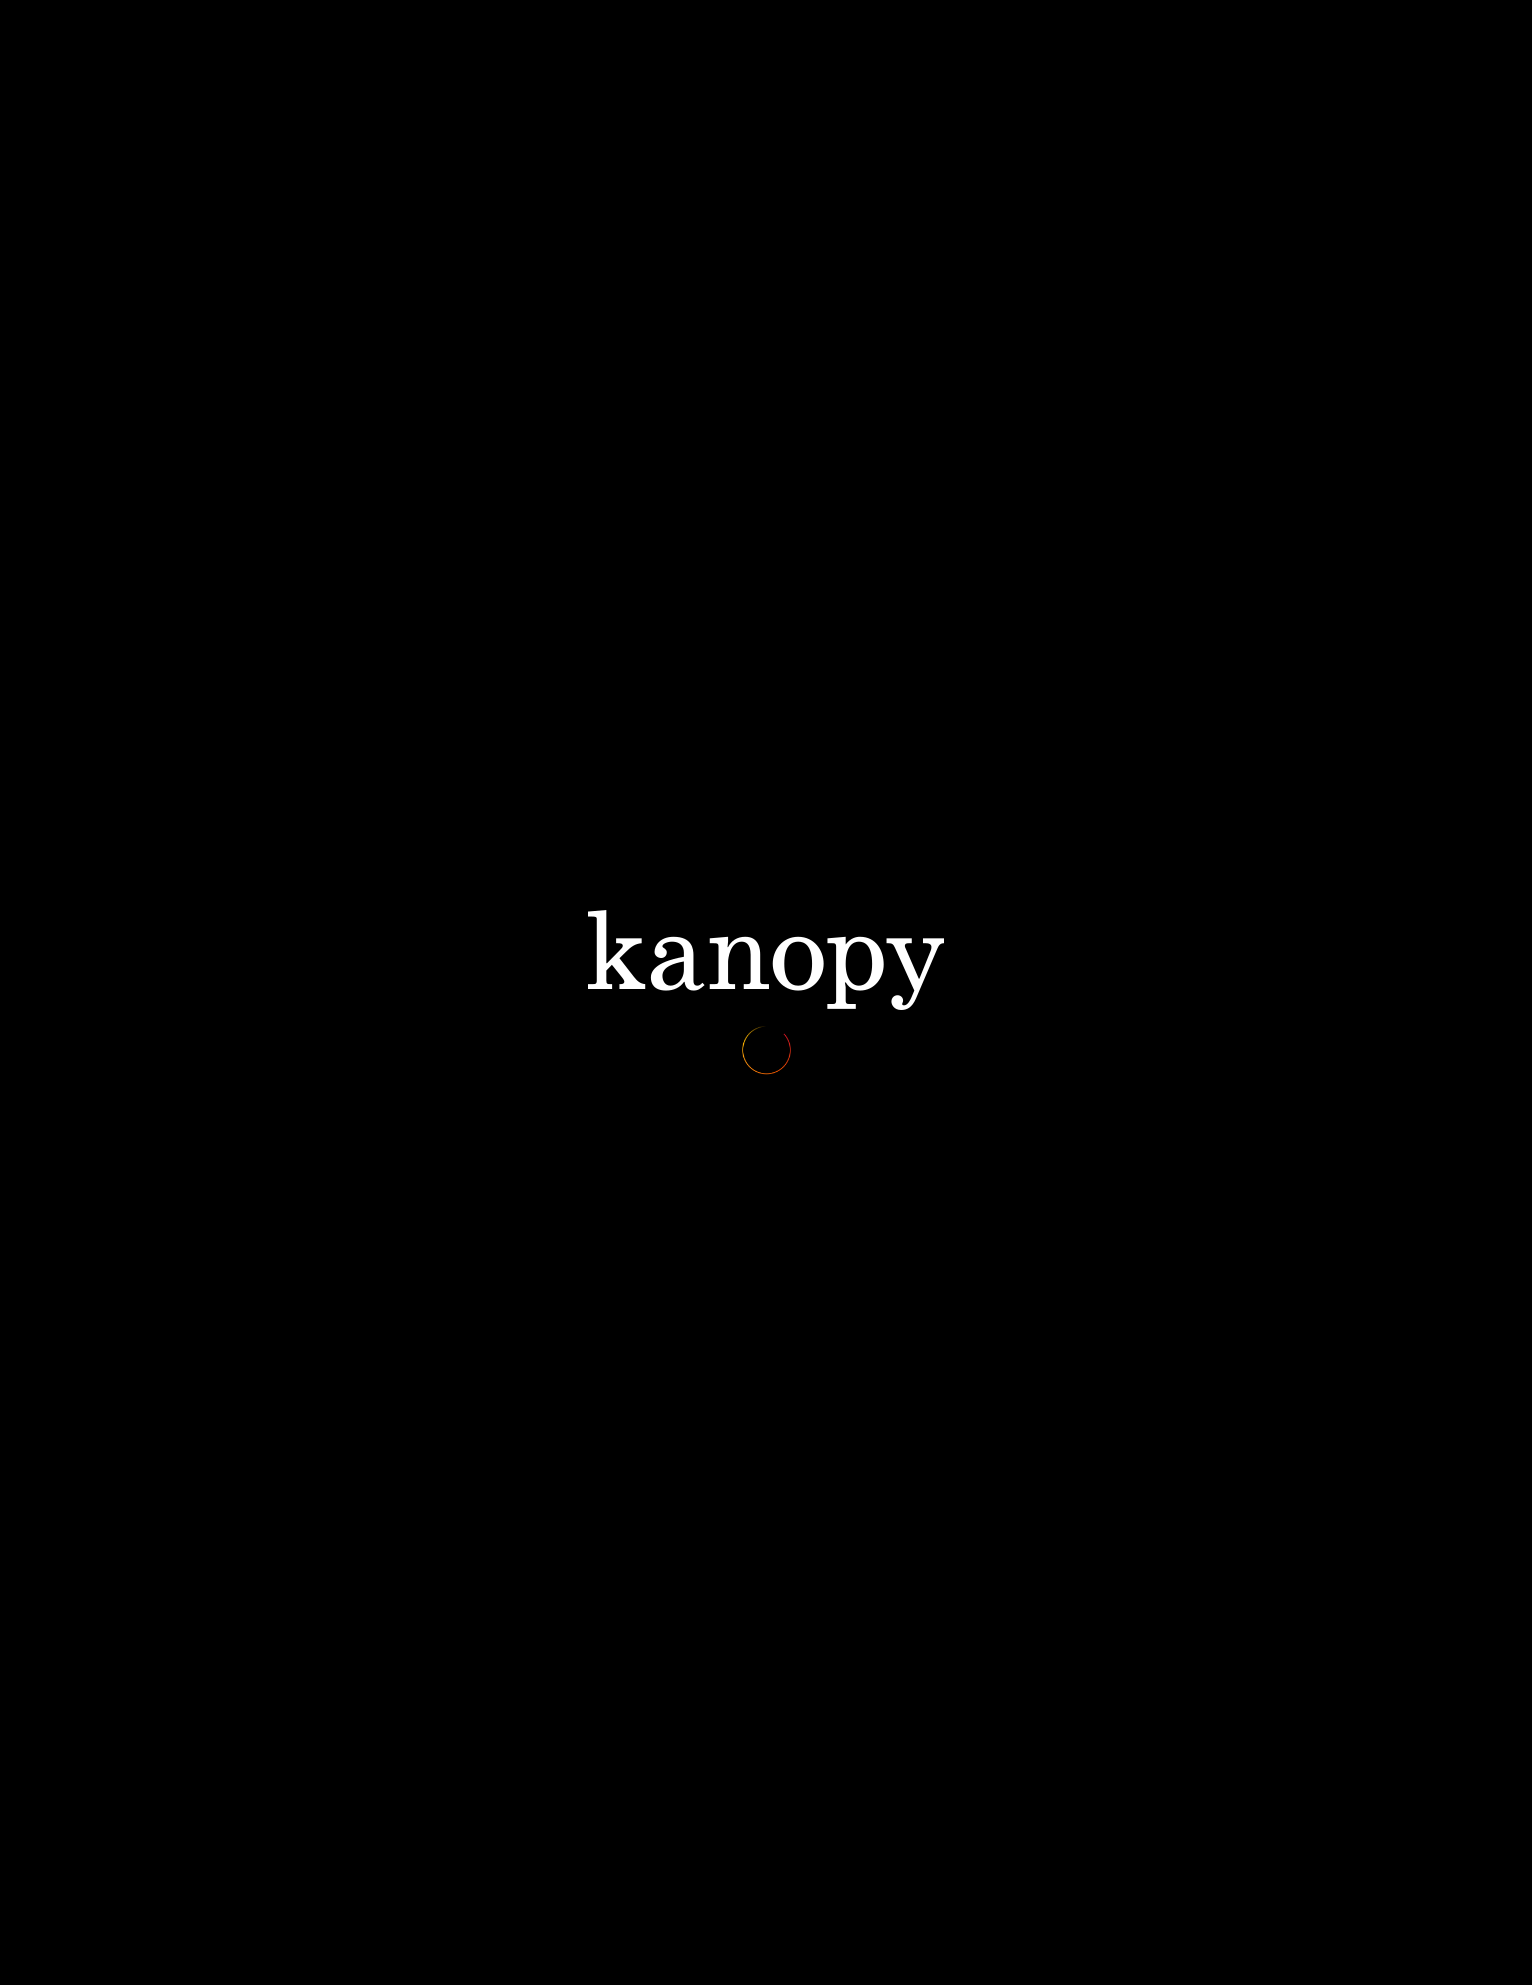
void draw(SkCanvas* canvas) {
    SkPaint paint;
    paint.setAntiAlias(true);
    auto paste = [&](const char* path, float x, float y, float w, float h) {
        auto image = SkImages::DeferredFromEncodedData(SkData::MakeFromFileName(path));
        canvas->drawImageRect(image, SkRect::MakeXYWH(x, y, w, h), SkSamplingOptions());
    };
    canvas->clear(SK_ColorBLACK);
    paste("pic1.png", 588, 910, 356, 100);
    paste("pic2.png", 742, 1026, 49, 49);
}
